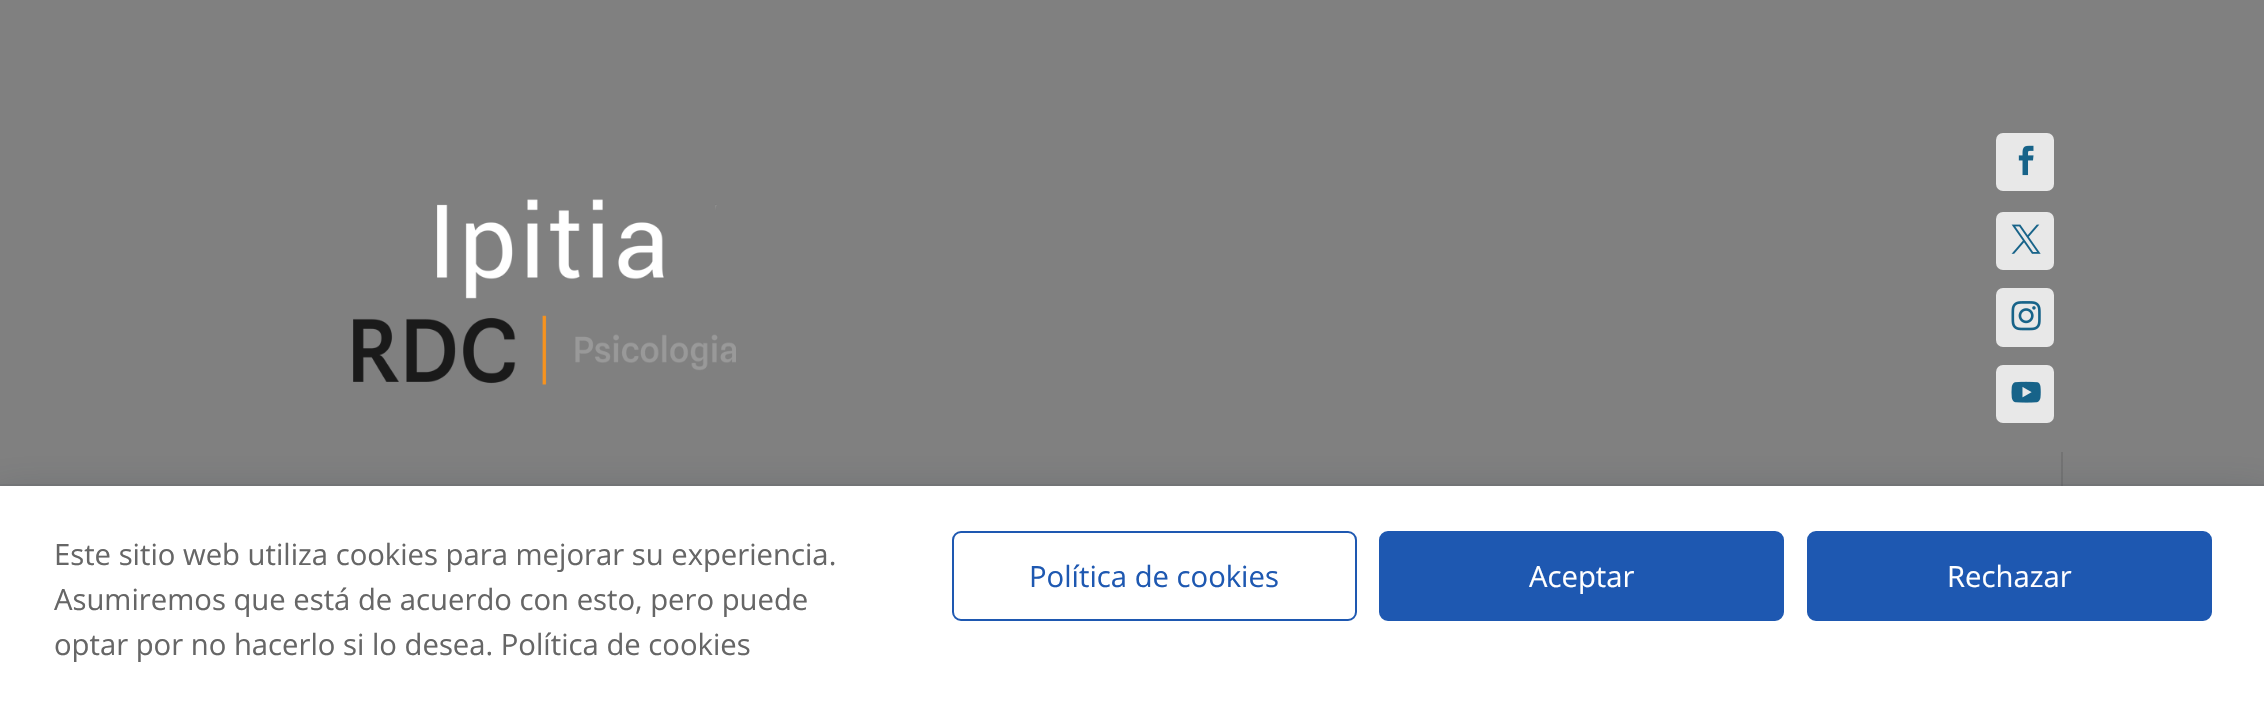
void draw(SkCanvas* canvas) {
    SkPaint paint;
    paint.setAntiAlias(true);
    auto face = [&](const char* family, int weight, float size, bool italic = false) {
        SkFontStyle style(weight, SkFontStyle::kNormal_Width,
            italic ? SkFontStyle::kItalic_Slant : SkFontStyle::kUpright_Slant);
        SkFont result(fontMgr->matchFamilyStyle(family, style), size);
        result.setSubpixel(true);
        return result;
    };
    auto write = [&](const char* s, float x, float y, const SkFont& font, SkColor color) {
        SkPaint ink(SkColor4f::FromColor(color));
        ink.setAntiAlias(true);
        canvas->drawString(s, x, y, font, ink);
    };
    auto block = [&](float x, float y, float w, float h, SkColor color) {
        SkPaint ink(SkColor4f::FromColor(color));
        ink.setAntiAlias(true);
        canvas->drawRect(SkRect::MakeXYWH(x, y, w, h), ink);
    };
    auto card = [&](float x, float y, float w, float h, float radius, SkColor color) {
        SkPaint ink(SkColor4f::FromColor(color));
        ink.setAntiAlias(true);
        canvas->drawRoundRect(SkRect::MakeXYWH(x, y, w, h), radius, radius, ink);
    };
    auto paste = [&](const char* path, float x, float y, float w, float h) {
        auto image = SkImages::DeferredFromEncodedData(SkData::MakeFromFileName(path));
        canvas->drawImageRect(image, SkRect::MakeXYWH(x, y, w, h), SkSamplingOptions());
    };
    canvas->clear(SkColorSetRGB(128, 128, 128));
    paste("pic1.png", 353, 199, 383, 186);
    card(1996, 133, 58, 58, 7, SkColorSetRGB(232, 232, 232));
    paste("pic2.png", 2018, 145, 16, 31);
    card(1996, 212, 58, 58, 7, SkColorSetRGB(232, 232, 232));
    paste("pic3.png", 2011, 224, 30, 30);
    card(1996, 288, 58, 59, 7, SkColorSetRGB(232, 232, 232));
    paste("pic4.png", 2011, 301, 30, 30);
    card(1996, 365, 58, 58, 7, SkColorSetRGB(232, 232, 232));
    paste("pic5.png", 2011, 381, 30, 22);
    block(2061, 452, 2, 34, SkColorSetRGB(115, 115, 115));
    paint.setColor(SkColorSetARGB(79, 36, 47, 66));
    paint.setMaskFilter(SkMaskFilter::MakeBlur(kNormal_SkBlurStyle, 22.5f));
    canvas->drawRect(SkRect::MakeXYWH(-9, 500, 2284, 198), paint);
    paint.setMaskFilter(nullptr);
    paint.setStyle(SkPaint::kStroke_Style);
    paint.setStrokeWidth(2);
    paint.setColor(SkColorSetARGB(20, 36, 47, 66));
    canvas->drawRect(SkRect::MakeXYWH(-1, 485, 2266, 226), paint);
    block(0, 486, 2264, 224, SK_ColorWHITE);
    auto kFont1 = face("Open Sans", 400, 29.25f);
    write("Este sitio web utiliza cookies para mejorar su experiencia.", 54, 565, kFont1, SkColorSetRGB(102, 102, 102));
    write("Asumiremos que está de acuerdo con esto, pero puede", 54, 610, kFont1, SkColorSetRGB(102, 102, 102));
    write("optar por no hacerlo si lo desea. Política de cookies", 54, 655, kFont1, SkColorSetRGB(102, 102, 102));
    paint.setColor(SkColorSetRGB(30, 88, 177));
    canvas->drawRoundRect(SkRect::MakeXYWH(953, 532, 403, 88), 8, 8, paint);
    write("Política de cookies", 1029, 587, kFont1, SkColorSetRGB(30, 88, 177));
    paint.setStyle(SkPaint::kFill_Style);
    canvas->drawRoundRect(SkRect::MakeXYWH(1380, 532, 403, 88), 8, 8, paint);
    paint.setStyle(SkPaint::kStroke_Style);
    canvas->drawRoundRect(SkRect::MakeXYWH(1380, 532, 403, 88), 8, 8, paint);
    write("Aceptar", 1529, 587, kFont1, SK_ColorWHITE);
    paint.setStyle(SkPaint::kFill_Style);
    canvas->drawRoundRect(SkRect::MakeXYWH(1808, 532, 403, 88), 8, 8, paint);
    paint.setStyle(SkPaint::kStroke_Style);
    canvas->drawRoundRect(SkRect::MakeXYWH(1808, 532, 403, 88), 8, 8, paint);
    write("Rechazar", 1947, 587, kFont1, SK_ColorWHITE);
}
